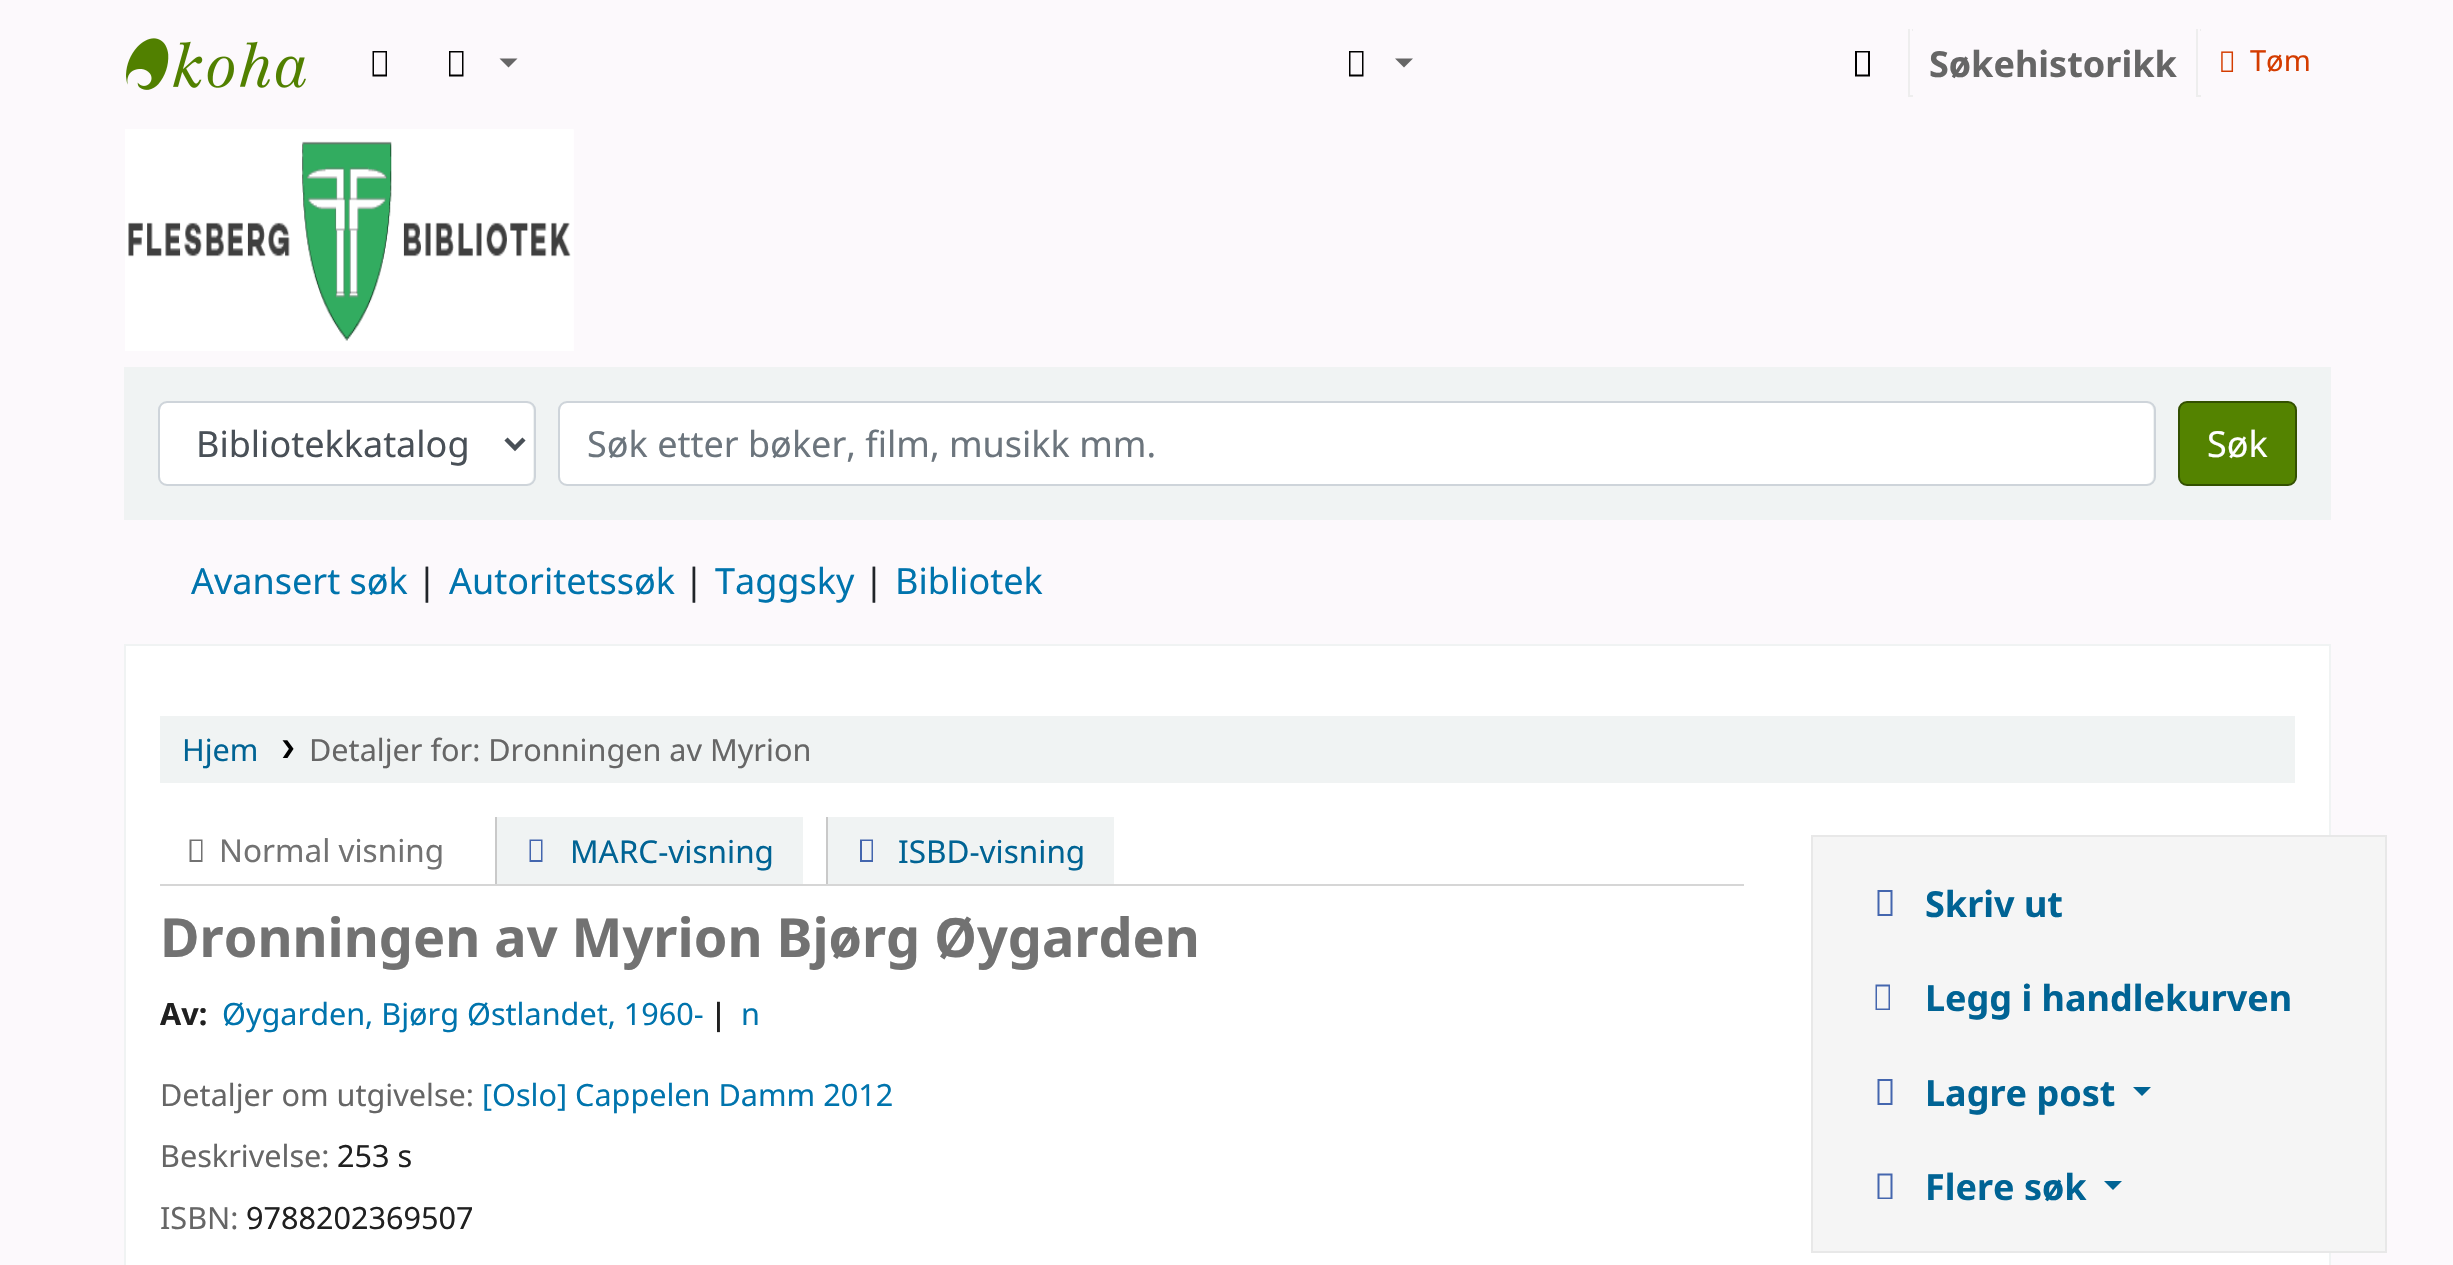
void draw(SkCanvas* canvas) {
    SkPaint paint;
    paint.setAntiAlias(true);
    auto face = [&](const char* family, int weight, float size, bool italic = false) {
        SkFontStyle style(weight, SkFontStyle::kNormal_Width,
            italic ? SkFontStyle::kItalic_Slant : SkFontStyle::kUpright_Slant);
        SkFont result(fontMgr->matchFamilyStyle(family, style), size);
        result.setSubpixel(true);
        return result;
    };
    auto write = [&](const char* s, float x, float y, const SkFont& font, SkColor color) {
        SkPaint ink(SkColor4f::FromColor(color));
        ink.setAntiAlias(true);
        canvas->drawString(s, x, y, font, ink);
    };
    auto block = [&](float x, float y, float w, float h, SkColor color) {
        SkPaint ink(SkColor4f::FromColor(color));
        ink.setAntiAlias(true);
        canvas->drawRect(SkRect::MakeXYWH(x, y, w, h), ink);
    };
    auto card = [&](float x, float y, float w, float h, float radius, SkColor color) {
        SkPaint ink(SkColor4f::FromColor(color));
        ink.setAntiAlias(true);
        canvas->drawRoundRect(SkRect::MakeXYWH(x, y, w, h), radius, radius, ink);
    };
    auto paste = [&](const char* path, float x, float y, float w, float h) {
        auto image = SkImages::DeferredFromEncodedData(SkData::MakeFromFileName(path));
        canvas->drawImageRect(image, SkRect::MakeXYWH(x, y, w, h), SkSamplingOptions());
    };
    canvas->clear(SkColorSetRGB(252, 249, 252));
    paste("pic1.png", 126, 38, 180, 52);
    paint.setColor(SK_ColorBLACK);
    canvas->drawPath(SkPathBuilder().moveTo(372.5f, 76.5f).lineTo(372.5f, 51).lineTo(387, 51).lineTo(387, 76.5f).close().moveTo(374, 74.5f).lineTo(385.5f, 74.5f).lineTo(385.5f, 52.5f).lineTo(374, 52.5f).close().detach(), paint);
    canvas->drawPath(SkPathBuilder().moveTo(449, 76.5f).lineTo(449, 51).lineTo(463.5f, 51).lineTo(463.5f, 76.5f).close().moveTo(450.5f, 74.5f).lineTo(462, 74.5f).lineTo(462, 52.5f).lineTo(450.5f, 52.5f).close().detach(), paint);
    paint.setColor(SkColorSetRGB(102, 102, 102));
    canvas->drawPath(SkPathBuilder().moveTo(499.5f, 58.5f).lineTo(517.5f, 58.5f).lineTo(508.5f, 67.5f).close().detach(), paint);
    paint.setColor(SK_ColorBLACK);
    canvas->drawPath(SkPathBuilder().moveTo(1349, 76.5f).lineTo(1349, 51).lineTo(1363.5f, 51).lineTo(1363.5f, 76.5f).close().moveTo(1350.5f, 74.5f).lineTo(1362, 74.5f).lineTo(1362, 52.5f).lineTo(1350.5f, 52.5f).close().detach(), paint);
    paint.setColor(SkColorSetRGB(102, 102, 102));
    canvas->drawPath(SkPathBuilder().moveTo(1395, 58.5f).lineTo(1413, 58.5f).lineTo(1404, 67.5f).close().detach(), paint);
    paint.setColor(SK_ColorBLACK);
    canvas->drawPath(SkPathBuilder().moveTo(1855, 76.5f).lineTo(1855, 51).lineTo(1870, 51).lineTo(1870, 76.5f).close().moveTo(1857, 74.5f).lineTo(1868, 74.5f).lineTo(1868, 52.5f).lineTo(1857, 52.5f).close().detach(), paint);
    block(1908, 29, 5, 2, SkColorSetRGB(238, 238, 238));
    block(1910, 29, 2, 2, SkColorSetRGB(252, 249, 252));
    block(1908, 95, 5, 2, SkColorSetRGB(238, 238, 238));
    block(1908, 29, 2, 68, SkColorSetRGB(238, 238, 238));
    auto kFont1 = face("Noto Sans", 700, 36);
    write("Søkehistorikk", 1929, 77, kFont1, SkColorSetRGB(102, 102, 102));
    block(2196, 29, 5, 2, SkColorSetRGB(238, 238, 238));
    block(2198, 29, 2, 2, SkColorSetRGB(252, 249, 252));
    block(2196, 95, 5, 2, SkColorSetRGB(238, 238, 238));
    block(2196, 29, 2, 68, SkColorSetRGB(238, 238, 238));
    paste("pic2.png", 2221, 51, 13, 21);
    auto kFont2 = face("Noto Sans", 400, 29);
    write("Tøm", 2250, 71, kFont2, SkColorSetRGB(212, 60, 0));
    paste("pic3.png", 125, 129, 449, 222);
    block(124, 367, 2207, 153, SkColorSetRGB(240, 243, 243));
    card(160, 403, 373, 81, 7, SK_ColorWHITE);
    paint.setStyle(SkPaint::kStroke_Style);
    paint.setStrokeWidth(2);
    paint.setColor(SkColorSetRGB(206, 212, 218));
    canvas->drawRoundRect(SkRect::MakeXYWH(159, 402, 376, 83), 8, 8, paint);
    paint.setStrokeWidth(4.5f);
    paint.setColor(SkColorSetRGB(73, 80, 87));
    canvas->drawPath(SkPathBuilder().moveTo(506, 439).lineTo(515, 448).lineTo(524, 439).detach(), paint);
    auto kFont3 = face("Noto Sans", 400, 36);
    write("Bibliotekkatalog", 196, 457, kFont3, SkColorSetRGB(73, 80, 87));
    card(560, 403, 1593, 81, 7, SK_ColorWHITE);
    paint.setStrokeWidth(2);
    paint.setColor(SkColorSetRGB(206, 212, 218));
    canvas->drawRoundRect(SkRect::MakeXYWH(559, 402, 1596, 83), 8, 8, paint);
    write("Søk etter bøker, film, musikk mm.", 587, 457, kFont3, SkColorSetRGB(108, 117, 125));
    paint.setStyle(SkPaint::kFill_Style);
    paint.setColor(SkColorSetRGB(84, 131, 0));
    canvas->drawRoundRect(SkRect::MakeXYWH(2179, 402, 117, 83), 8, 8, paint);
    paint.setStyle(SkPaint::kStroke_Style);
    paint.setColor(SkColorSetRGB(51, 80, 0));
    canvas->drawRoundRect(SkRect::MakeXYWH(2179, 402, 117, 83), 8, 8, paint);
    write("Søk", 2207, 457, kFont3, SK_ColorWHITE);
    write("Avansert søk", 191, 594, kFont3, SkColorSetRGB(0, 116, 173));
    write("|", 417, 594, kFont3, SkColorSetRGB(33, 37, 41));
    write("Autoritetssøk", 449, 594, kFont3, SkColorSetRGB(0, 116, 173));
    write("|", 684, 594, kFont3, SkColorSetRGB(33, 37, 41));
    write("Taggsky", 715, 594, kFont3, SkColorSetRGB(0, 116, 173));
    write("|", 864, 594, kFont3, SkColorSetRGB(33, 37, 41));
    write("Bibliotek", 895, 594, kFont3, SkColorSetRGB(0, 116, 173));
    paint.setStyle(SkPaint::kFill_Style);
    paint.setColor(SK_ColorWHITE);
    canvas->drawRect(SkRect::MakeXYWH(125, 645, 2205, 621), paint);
    paint.setStyle(SkPaint::kStroke_Style);
    paint.setColor(SkColorSetRGB(240, 243, 243));
    canvas->drawRect(SkRect::MakeXYWH(125, 645, 2205, 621), paint);
    block(160, 716, 2135, 67, SkColorSetRGB(240, 243, 243));
    auto kFont4 = face("Noto Sans", 400, 30.6f);
    write("Hjem", 182, 761, kFont4, SkColorSetRGB(0, 99, 148));
    paste("pic4.png", 282, 740, 12, 18);
    write("Detaljer for: Dronningen av Myrion", 309, 761, kFont4, SkColorSetRGB(102, 102, 102));
    block(160, 884, 1584, 2, SkColorSetRGB(214, 214, 214));
    paint.setStyle(SkPaint::kFill_Style);
    paint.setColor(SkColorSetRGB(114, 114, 114));
    canvas->drawPath(SkPathBuilder().moveTo(189.5f, 862).lineTo(189.5f, 839.5f).lineTo(202.5f, 839.5f).lineTo(202.5f, 862).close().moveTo(191.5f, 860).lineTo(201, 860).lineTo(201, 841).lineTo(191.5f, 841).close().detach(), paint);
    auto kFont5 = face("Noto Sans", 400, 31.5f);
    write("Normal visning", 219, 862, kFont5, SkColorSetRGB(114, 114, 114));
    block(497, 817, 306, 67, SkColorSetRGB(240, 243, 243));
    block(495, 817, 2, 67, SkColorSetRGB(201, 201, 201));
    paint.setColor(SkColorSetRGB(68, 102, 174));
    canvas->drawPath(SkPathBuilder().moveTo(529.5f, 862).lineTo(529.5f, 839.5f).lineTo(542.5f, 839.5f).lineTo(542.5f, 862).close().moveTo(531, 860).lineTo(541, 860).lineTo(541, 841).lineTo(531, 841).close().detach(), paint);
    write("MARC-visning", 570, 863, kFont5, SkColorSetRGB(0, 99, 148));
    block(828, 817, 286, 67, SkColorSetRGB(240, 243, 243));
    block(826, 817, 2, 67, SkColorSetRGB(201, 201, 201));
    canvas->drawPath(SkPathBuilder().moveTo(860, 862).lineTo(860, 839.5f).lineTo(873, 839.5f).lineTo(873, 862).close().moveTo(862, 860).lineTo(871.5f, 860).lineTo(871.5f, 841).lineTo(862, 841).close().detach(), paint);
    write("ISBD-visning", 898, 863, kFont5, SkColorSetRGB(0, 99, 148));
    auto kFont6 = face("Noto Sans", 700, 54);
    write("Dronningen av Myrion Bjørg Øygarden", 160, 957, kFont6, SkColorSetRGB(114, 114, 114));
    auto kFont7 = face("Noto Sans", 700, 30.6f);
    write("Av:", 160, 1025, kFont7, SkColorSetRGB(32, 32, 32));
    write("Øygarden, Bjørg Østlandet, 1960-", 222, 1025, kFont4, SkColorSetRGB(0, 116, 173));
    auto kFont8 = face("Noto Sans", 600, 30.6f);
    write("|", 710, 1025, kFont8, SkColorSetRGB(32, 32, 32));
    write("n", 741, 1025, kFont4, SkColorSetRGB(0, 116, 173));
    write("Detaljer om utgivelse:", 160, 1106, kFont4, SkColorSetRGB(102, 102, 102));
    write("[Oslo] Cappelen Damm 2012", 482, 1106, kFont4, SkColorSetRGB(0, 116, 173));
    write("Beskrivelse:", 160, 1167, kFont4, SkColorSetRGB(102, 102, 102));
    write("253 s", 337, 1167, kFont4, SkColorSetRGB(32, 32, 32));
    write("ISBN:", 160, 1229, kFont4, SkColorSetRGB(102, 102, 102));
    write("9788202369507", 246, 1229, kFont4, SkColorSetRGB(32, 32, 32));
    paint.setColor(SkColorSetRGB(245, 245, 245));
    canvas->drawRect(SkRect::MakeXYWH(1812, 836, 574, 416), paint);
    paint.setStyle(SkPaint::kStroke_Style);
    paint.setColor(SkColorSetRGB(232, 232, 232));
    canvas->drawRect(SkRect::MakeXYWH(1812, 836, 574, 416), paint);
    paint.setStyle(SkPaint::kFill_Style);
    paint.setColor(SkColorSetRGB(68, 102, 174));
    canvas->drawPath(SkPathBuilder().moveTo(1877.5f, 916).lineTo(1877.5f, 890).lineTo(1892.5f, 890).lineTo(1892.5f, 916).close().moveTo(1879.5f, 914).lineTo(1890.5f, 914).lineTo(1890.5f, 892).lineTo(1879.5f, 892).close().detach(), paint);
    write("Skriv ut", 1925, 917, kFont1, SkColorSetRGB(0, 99, 148));
    canvas->drawPath(SkPathBuilder().moveTo(1875.5f, 1010).lineTo(1875.5f, 984.5f).lineTo(1890, 984.5f).lineTo(1890, 1010).close().moveTo(1877, 1008.5f).lineTo(1888.5f, 1008.5f).lineTo(1888.5f, 986.5f).lineTo(1877, 986.5f).close().detach(), paint);
    write("Legg i handlekurven", 1925, 1011, kFont1, SkColorSetRGB(0, 99, 148));
    canvas->drawPath(SkPathBuilder().moveTo(1877.5f, 1105).lineTo(1877.5f, 1079).lineTo(1892.5f, 1079).lineTo(1892.5f, 1105).close().moveTo(1879.5f, 1103).lineTo(1890.5f, 1103).lineTo(1890.5f, 1081).lineTo(1879.5f, 1081).close().detach(), paint);
    write("Lagre post", 1925, 1106, kFont1, SkColorSetRGB(0, 99, 148));
    paint.setColor(SkColorSetRGB(0, 99, 148));
    canvas->drawPath(SkPathBuilder().moveTo(2133, 1087).lineTo(2151, 1087).lineTo(2142, 1096).close().detach(), paint);
    paint.setColor(SkColorSetRGB(68, 102, 174));
    canvas->drawPath(SkPathBuilder().moveTo(1877.5f, 1199).lineTo(1877.5f, 1173.5f).lineTo(1892.5f, 1173.5f).lineTo(1892.5f, 1199).close().moveTo(1879.5f, 1197.5f).lineTo(1890.5f, 1197.5f).lineTo(1890.5f, 1175.5f).lineTo(1879.5f, 1175.5f).close().detach(), paint);
    write("Flere søk", 1925, 1200, kFont1, SkColorSetRGB(0, 99, 148));
    paint.setColor(SkColorSetRGB(0, 99, 148));
    canvas->drawPath(SkPathBuilder().moveTo(2104, 1181).lineTo(2122, 1181).lineTo(2113, 1190).close().detach(), paint);
}
